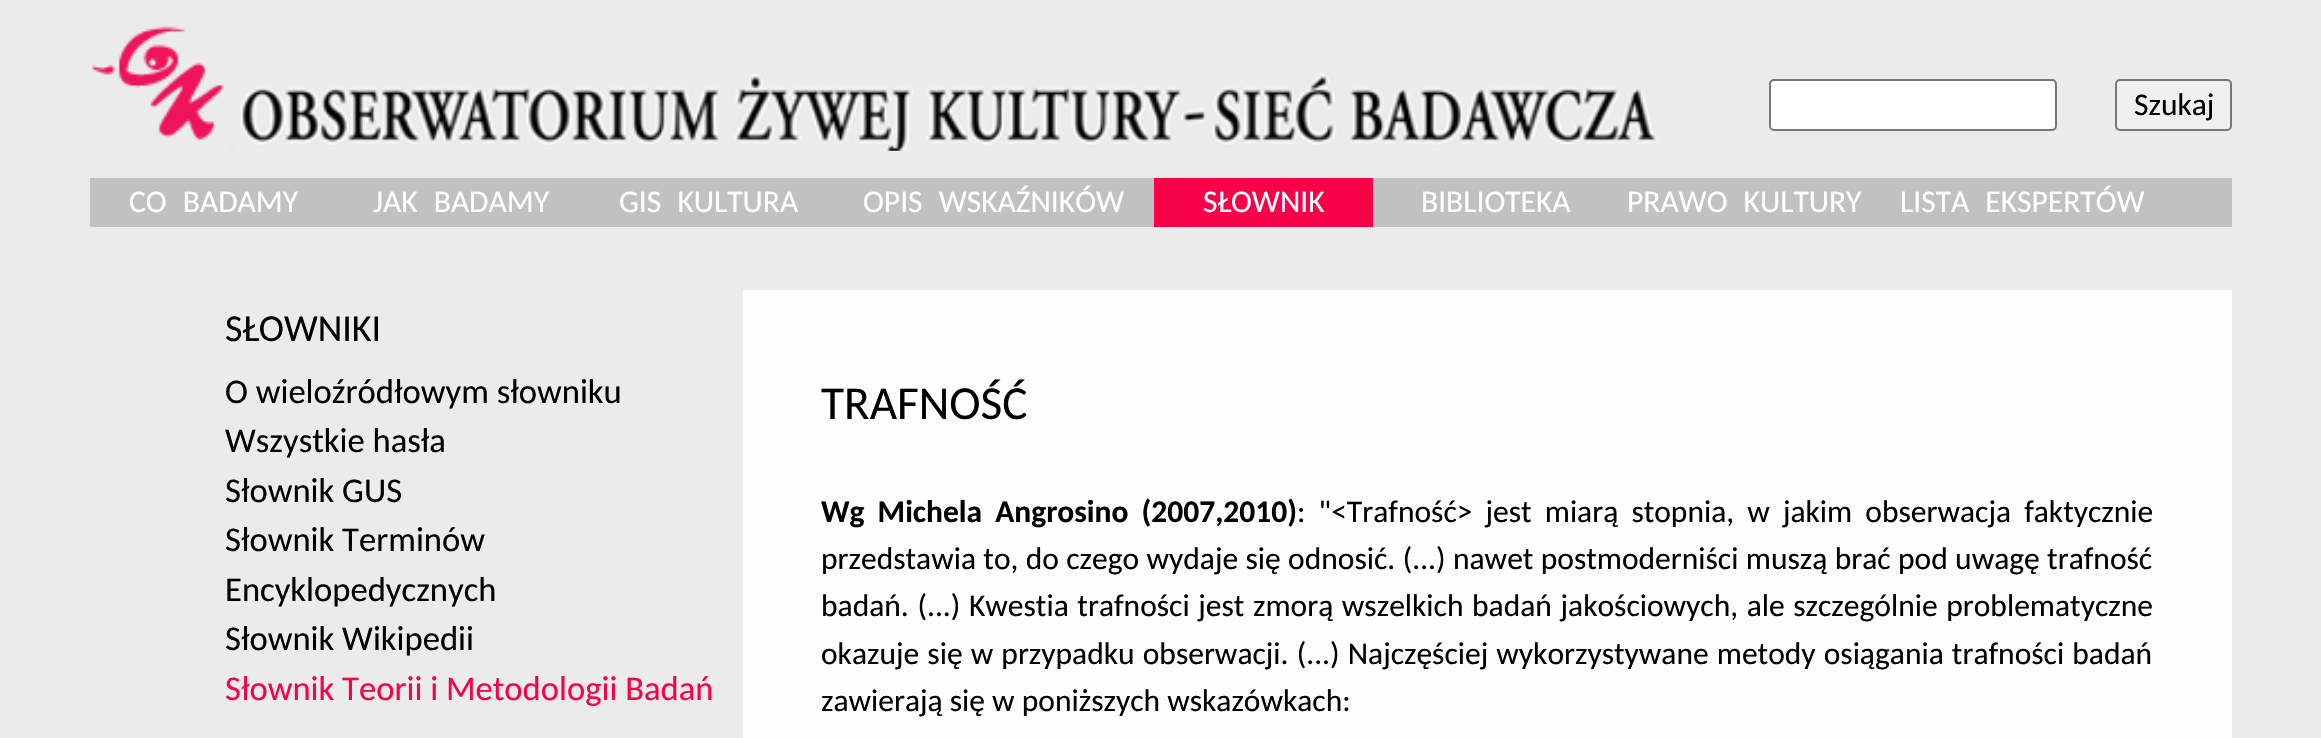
void draw(SkCanvas* canvas) {
    SkPaint paint;
    paint.setAntiAlias(true);
    auto face = [&](const char* family, int weight, float size, bool italic = false) {
        SkFontStyle style(weight, SkFontStyle::kNormal_Width,
            italic ? SkFontStyle::kItalic_Slant : SkFontStyle::kUpright_Slant);
        SkFont result(fontMgr->matchFamilyStyle(family, style), size);
        result.setSubpixel(true);
        return result;
    };
    auto write = [&](const char* s, float x, float y, const SkFont& font, SkColor color) {
        SkPaint ink(SkColor4f::FromColor(color));
        ink.setAntiAlias(true);
        canvas->drawString(s, x, y, font, ink);
    };
    auto writeSpaced = [&](const char* s, float x, float y, const SkFont& font, const SkPaint& ink, float letter, float word) {
        std::vector<SkGlyphID> glyphs(font.countText(s, strlen(s), SkTextEncoding::kUTF8));
        std::vector<float> xs(glyphs.size());
        font.textToGlyphs(s, strlen(s), SkTextEncoding::kUTF8, glyphs);
        font.getXPos(glyphs, xs, x);
        float extra = 0;
        for (size_t i = 0; i < glyphs.size(); i++) {
            xs[i] += extra;
            extra += letter + word * (glyphs[i] == font.unicharToGlyph(' '));
        }
        canvas->drawTextBlob(SkTextBlob::MakeFromPosHGlyphs(glyphs, xs, y, font), 0, 0, ink);
    };
    auto block = [&](float x, float y, float w, float h, SkColor color) {
        SkPaint ink(SkColor4f::FromColor(color));
        ink.setAntiAlias(true);
        canvas->drawRect(SkRect::MakeXYWH(x, y, w, h), ink);
    };
    auto paste = [&](const char* path, float x, float y, float w, float h) {
        auto image = SkImages::DeferredFromEncodedData(SkData::MakeFromFileName(path));
        canvas->drawImageRect(image, SkRect::MakeXYWH(x, y, w, h), SkSamplingOptions());
    };
    canvas->clear(SkColorSetRGB(235, 235, 235));
    paste("pic1.png", 91, 26, 1567, 125);
    paint.setColor(SK_ColorWHITE);
    canvas->drawRoundRect(SkRect::MakeXYWH(1770, 80, 286, 50), 4, 4, paint);
    paint.setStyle(SkPaint::kStroke_Style);
    paint.setStrokeWidth(2);
    paint.setColor(SkColorSetRGB(118, 118, 118));
    canvas->drawRoundRect(SkRect::MakeXYWH(1770, 80, 286, 50), 4, 4, paint);
    paint.setStyle(SkPaint::kFill_Style);
    paint.setColor(SkColorSetRGB(239, 239, 239));
    canvas->drawRoundRect(SkRect::MakeXYWH(2116, 80, 115, 50), 4, 4, paint);
    paint.setStyle(SkPaint::kStroke_Style);
    paint.setColor(SkColorSetRGB(118, 118, 118));
    canvas->drawRoundRect(SkRect::MakeXYWH(2116, 80, 115, 50), 4, 4, paint);
    auto kFont1 = face("Carlito", 400, 31.5f);
    write("Szukaj", 2134, 115, kFont1, SK_ColorBLACK);
    block(90, 178, 2142, 49, SkColorSetRGB(193, 193, 193));
    paint.setStyle(SkPaint::kFill_Style);
    paint.setColor(SK_ColorWHITE);
    writeSpaced("CO BADAMY", 129, 212, kFont1, paint, 0, 9);
    writeSpaced("JAK BADAMY", 373, 212, kFont1, paint, 0, 9);
    writeSpaced("GIS KULTURA", 619, 212, kFont1, paint, 0, 9);
    writeSpaced("OPIS WSKAŹNIKÓW", 863, 212, kFont1, paint, 0, 9);
    block(1154, 178, 219, 49, SkColorSetRGB(247, 2, 71));
    write("SŁOWNIK", 1203, 212, kFont1, SK_ColorWHITE);
    write("BIBLIOTEKA", 1421, 212, kFont1, SK_ColorWHITE);
    writeSpaced("PRAWO KULTURY", 1627, 212, kFont1, paint, 0, 9);
    writeSpaced("LISTA EKSPERTÓW", 1900, 212, kFont1, paint, 0, 9);
    auto kFont2 = face("Carlito", 400, 38);
    write("SŁOWNIKI", 225, 341, kFont2, SK_ColorBLACK);
    auto kFont3 = face("Carlito", 400, 34.6f);
    write("O wieloźródłowym słowniku", 225, 403, kFont3, SK_ColorBLACK);
    write("Wszystkie hasła", 225, 452, kFont3, SK_ColorBLACK);
    write("Słownik GUS", 225, 502, kFont3, SK_ColorBLACK);
    write("Słownik Terminów", 225, 551, kFont3, SK_ColorBLACK);
    write("Encyklopedycznych", 225, 601, kFont3, SK_ColorBLACK);
    write("Słownik Wikipedii", 225, 650, kFont3, SK_ColorBLACK);
    write("Słownik Teorii i Metodologii Badań", 225, 700, kFont3, SkColorSetRGB(247, 2, 71));
    block(743, 290, 1489, 448, SkColorSetRGB(253, 253, 253));
    auto kFont4 = face("Carlito", 400, 47.25f);
    write("TRAFNOŚĆ", 821, 419, kFont4, SK_ColorBLACK);
    auto kFont5 = face("Carlito", 700, 31.5f);
    paint.setColor(SK_ColorBLACK);
    writeSpaced("Wg Michela Angrosino (2007,2010)", 821, 522, kFont5, paint, 0, 6);
    writeSpaced(": \"<Trafność> jest miarą stopnia, w jakim obserwacja faktycznie", 1297, 522, kFont1, paint, 0, 6);
    writeSpaced("przedstawia to, do czego wydaje się odnosić. (...) nawet postmoderniści muszą brać pod uwagę trafność", 821, 569, kFont1, paint, 0, 0.25f);
    writeSpaced("badań. (...) Kwestia trafności jest zmorą wszelkich badań jakościowych, ale szczególnie problematyczne", 821, 616, kFont1, paint, 0, 1.5f);
    writeSpaced("okazuje się w przypadku obserwacji. (...) Najczęściej wykorzystywane metody osiągania trafności badań", 821, 664, kFont1, paint, 0, 1);
    write("zawierają się w poniższych wskazówkach:", 821, 711, kFont1, SK_ColorBLACK);
}
